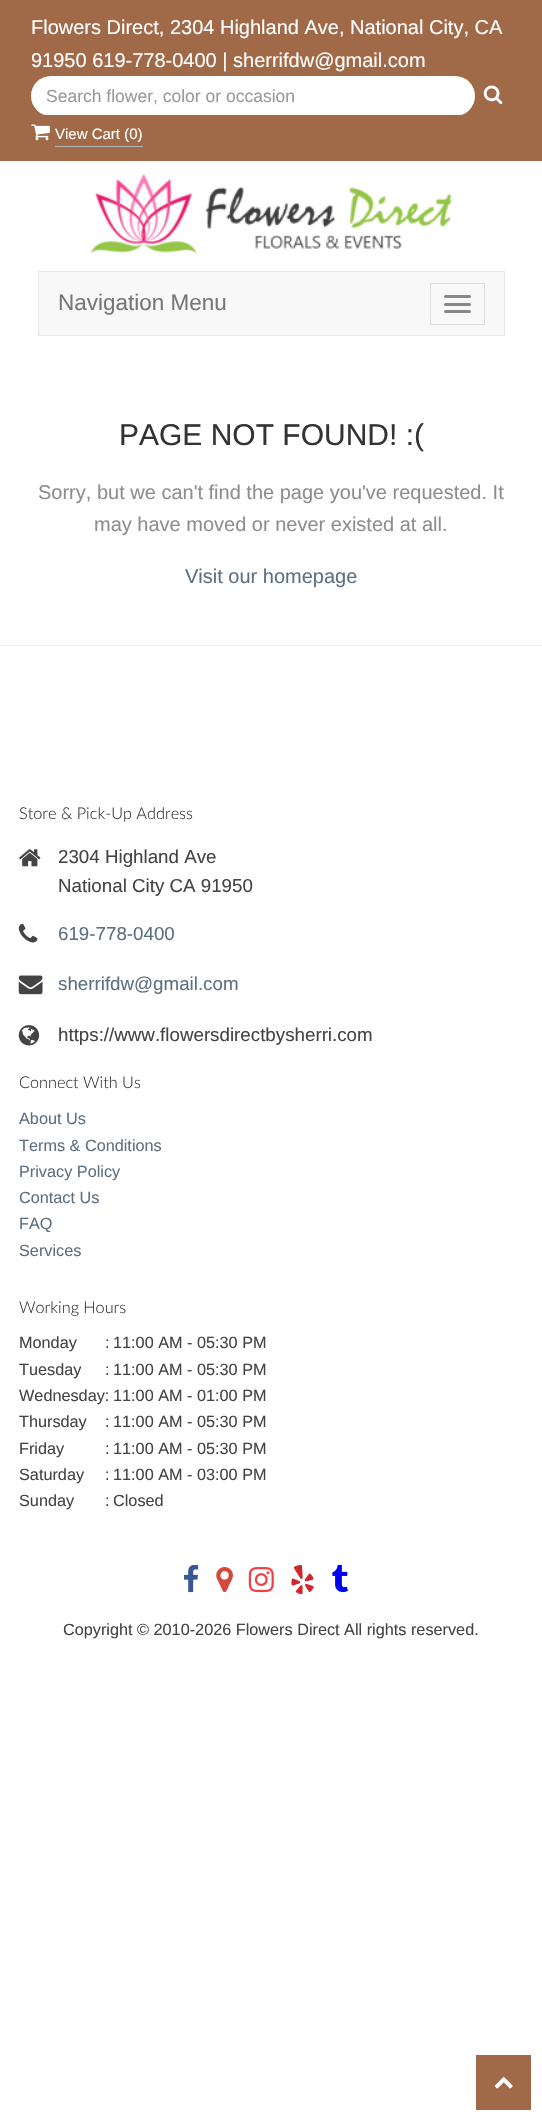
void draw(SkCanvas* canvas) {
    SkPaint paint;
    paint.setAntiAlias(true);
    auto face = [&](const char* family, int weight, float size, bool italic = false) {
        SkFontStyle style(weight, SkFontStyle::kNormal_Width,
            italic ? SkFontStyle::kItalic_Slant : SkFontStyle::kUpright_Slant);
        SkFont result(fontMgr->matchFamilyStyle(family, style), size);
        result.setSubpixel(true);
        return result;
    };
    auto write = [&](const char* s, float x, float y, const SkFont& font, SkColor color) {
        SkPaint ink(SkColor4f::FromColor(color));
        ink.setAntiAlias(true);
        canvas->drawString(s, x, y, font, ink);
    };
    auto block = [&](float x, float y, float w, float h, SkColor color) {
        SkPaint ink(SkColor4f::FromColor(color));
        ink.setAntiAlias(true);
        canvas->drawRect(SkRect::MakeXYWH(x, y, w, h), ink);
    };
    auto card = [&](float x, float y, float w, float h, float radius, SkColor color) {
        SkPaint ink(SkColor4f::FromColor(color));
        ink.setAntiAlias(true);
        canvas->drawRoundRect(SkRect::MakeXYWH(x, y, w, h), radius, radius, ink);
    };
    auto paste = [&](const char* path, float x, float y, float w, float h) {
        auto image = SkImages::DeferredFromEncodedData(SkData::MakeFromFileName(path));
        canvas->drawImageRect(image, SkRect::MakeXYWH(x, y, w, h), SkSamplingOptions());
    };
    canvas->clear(SK_ColorWHITE);
    block(0, 0, 542, 161, SkColorSetRGB(160, 105, 72));
    auto kFont1 = face("Liberation Sans", 400, 20);
    write("Flowers Direct, 2304 Highland Ave, National City, CA", 31, 34, kFont1, SK_ColorWHITE);
    write("91950 619-778-0400 | sherrifdw@gmail.com", 31, 67, kFont1, SK_ColorWHITE);
    card(31, 76, 444, 40, 20, SK_ColorWHITE);
    block(41, 115, 424, 1, SkColorSetRGB(160, 105, 72));
    auto kFont2 = face("Liberation Sans", 400, 17.5f);
    write("Search flower, color or occasion", 46, 102, kFont2, SkColorSetRGB(153, 153, 153));
    paste("pic1.png", 483, 85, 20, 20);
    paste("pic2.png", 31, 124, 19, 17);
    auto kFont3 = face("Liberation Sans", 400, 15);
    write("View Cart (0)", 55, 139, kFont3, SK_ColorWHITE);
    block(55, 146, 88, 1, SkColorSetRGB(183, 183, 183));
    paste("pic3.png", 90, 173, 362, 81);
    paint.setColor(SkColorSetRGB(248, 248, 248));
    canvas->drawRect(SkRect::MakeXYWH(38.5f, 271.5f, 466, 64), paint);
    paint.setStyle(SkPaint::kStroke_Style);
    paint.setStrokeWidth(1);
    paint.setColor(SkColorSetRGB(231, 231, 231));
    canvas->drawRect(SkRect::MakeXYWH(38.5f, 271.5f, 466, 64), paint);
    auto kFont4 = face("Liberation Sans", 400, 22.5f);
    write("Navigation Menu", 58, 310, kFont4, SkColorSetRGB(119, 119, 119));
    paint.setColor(SkColorSetRGB(221, 221, 221));
    canvas->drawRect(SkRect::MakeXYWH(430.5f, 283.5f, 54, 41), paint);
    card(444, 295, 27, 3, 1.5f, SkColorSetRGB(136, 136, 136));
    card(444, 303, 27, 3, 1.5f, SkColorSetRGB(136, 136, 136));
    card(444, 310, 27, 3, 1.5f, SkColorSetRGB(136, 136, 136));
    auto kFont5 = face("Liberation Sans", 400, 30);
    write("PAGE NOT FOUND! :(", 119, 445, kFont5, SkColorSetRGB(51, 51, 51));
    write("Sorry, but we can't find the page you've requested. It", 38, 499, kFont1, SkColorSetRGB(142, 142, 142));
    write("may have moved or never existed at all.", 94, 531, kFont1, SkColorSetRGB(142, 142, 142));
    write("Visit our homepage", 185, 583, kFont1, SkColorSetRGB(91, 112, 131));
    block(0, 645, 542, 1, SkColorSetRGB(238, 238, 238));
    auto kFont6 = face("Lato", 300, 16.25f);
    write("Store & Pick-Up Address", 19, 819, kFont6, SkColorSetRGB(51, 51, 51));
    paste("pic4.png", 19, 849, 22, 18);
    auto kFont7 = face("Liberation Sans", 400, 18.75f);
    write("2304 Highland Ave", 58, 863, kFont7, SkColorSetRGB(68, 68, 68));
    write("National City CA 91950", 58, 892, kFont7, SkColorSetRGB(68, 68, 68));
    paste("pic5.png", 18, 923, 20, 20);
    write("619-778-0400", 58, 940, kFont7, SkColorSetRGB(91, 112, 131));
    paste("pic6.png", 18, 975, 25, 20);
    write("sherrifdw@gmail.com", 58, 990, kFont7, SkColorSetRGB(91, 112, 131));
    paste("pic7.png", 18, 1025, 22, 21);
    write("https://www.flowersdirectbysherri.com", 58, 1041, kFont7, SkColorSetRGB(68, 68, 68));
    write("Connect With Us", 19, 1088, kFont6, SkColorSetRGB(51, 51, 51));
    auto kFont8 = face("Liberation Sans", 400, 16.25f);
    write("About Us", 19, 1124, kFont8, SkColorSetRGB(91, 112, 131));
    write("Terms & Conditions", 19, 1151, kFont8, SkColorSetRGB(91, 112, 131));
    write("Privacy Policy", 19, 1177, kFont8, SkColorSetRGB(91, 112, 131));
    write("Contact Us", 19, 1203, kFont8, SkColorSetRGB(91, 112, 131));
    write("FAQ", 19, 1229, kFont8, SkColorSetRGB(91, 112, 131));
    write("Services", 19, 1256, kFont8, SkColorSetRGB(91, 112, 131));
    write("Working Hours", 19, 1313, kFont6, SkColorSetRGB(51, 51, 51));
    write("Monday", 19, 1348, kFont8, SkColorSetRGB(68, 68, 68));
    write(":", 105, 1348, kFont8, SkColorSetRGB(68, 68, 68));
    write("11:00 AM - 05:30 PM", 113, 1348, kFont8, SkColorSetRGB(68, 68, 68));
    write("Tuesday", 19, 1375, kFont8, SkColorSetRGB(68, 68, 68));
    write(":", 105, 1375, kFont8, SkColorSetRGB(68, 68, 68));
    write("11:00 AM - 05:30 PM", 113, 1375, kFont8, SkColorSetRGB(68, 68, 68));
    write("Wednesday:", 19, 1401, kFont8, SkColorSetRGB(68, 68, 68));
    write("11:00 AM - 01:00 PM", 113, 1401, kFont8, SkColorSetRGB(68, 68, 68));
    write("Thursday", 19, 1427, kFont8, SkColorSetRGB(68, 68, 68));
    write(":", 105, 1427, kFont8, SkColorSetRGB(68, 68, 68));
    write("11:00 AM - 05:30 PM", 113, 1427, kFont8, SkColorSetRGB(68, 68, 68));
    write("Friday", 19, 1454, kFont8, SkColorSetRGB(68, 68, 68));
    write(":", 105, 1454, kFont8, SkColorSetRGB(68, 68, 68));
    write("11:00 AM - 05:30 PM", 113, 1454, kFont8, SkColorSetRGB(68, 68, 68));
    write("Saturday", 19, 1480, kFont8, SkColorSetRGB(68, 68, 68));
    write(":", 105, 1480, kFont8, SkColorSetRGB(68, 68, 68));
    write("11:00 AM - 03:00 PM", 113, 1480, kFont8, SkColorSetRGB(68, 68, 68));
    write("Sunday", 19, 1506, kFont8, SkColorSetRGB(68, 68, 68));
    write(":", 105, 1506, kFont8, SkColorSetRGB(68, 68, 68));
    write("Closed", 113, 1506, kFont8, SkColorSetRGB(68, 68, 68));
    paste("pic8.png", 184, 1564, 15, 29);
    paste("pic9.png", 216, 1567, 17, 26);
    paste("pic10.png", 248, 1567, 26, 26);
    paste("pic11.png", 291, 1565, 23, 30);
    paste("pic12.png", 332, 1564, 16, 29);
    write("Copyright © 2010-2026 Flowers Direct All rights reserved.", 63, 1635, kFont8, SkColorSetRGB(68, 68, 68));
    block(476, 2055, 55, 55, SkColorSetRGB(160, 105, 72));
    paste("pic13.png", 494, 2077, 19, 12);
}
